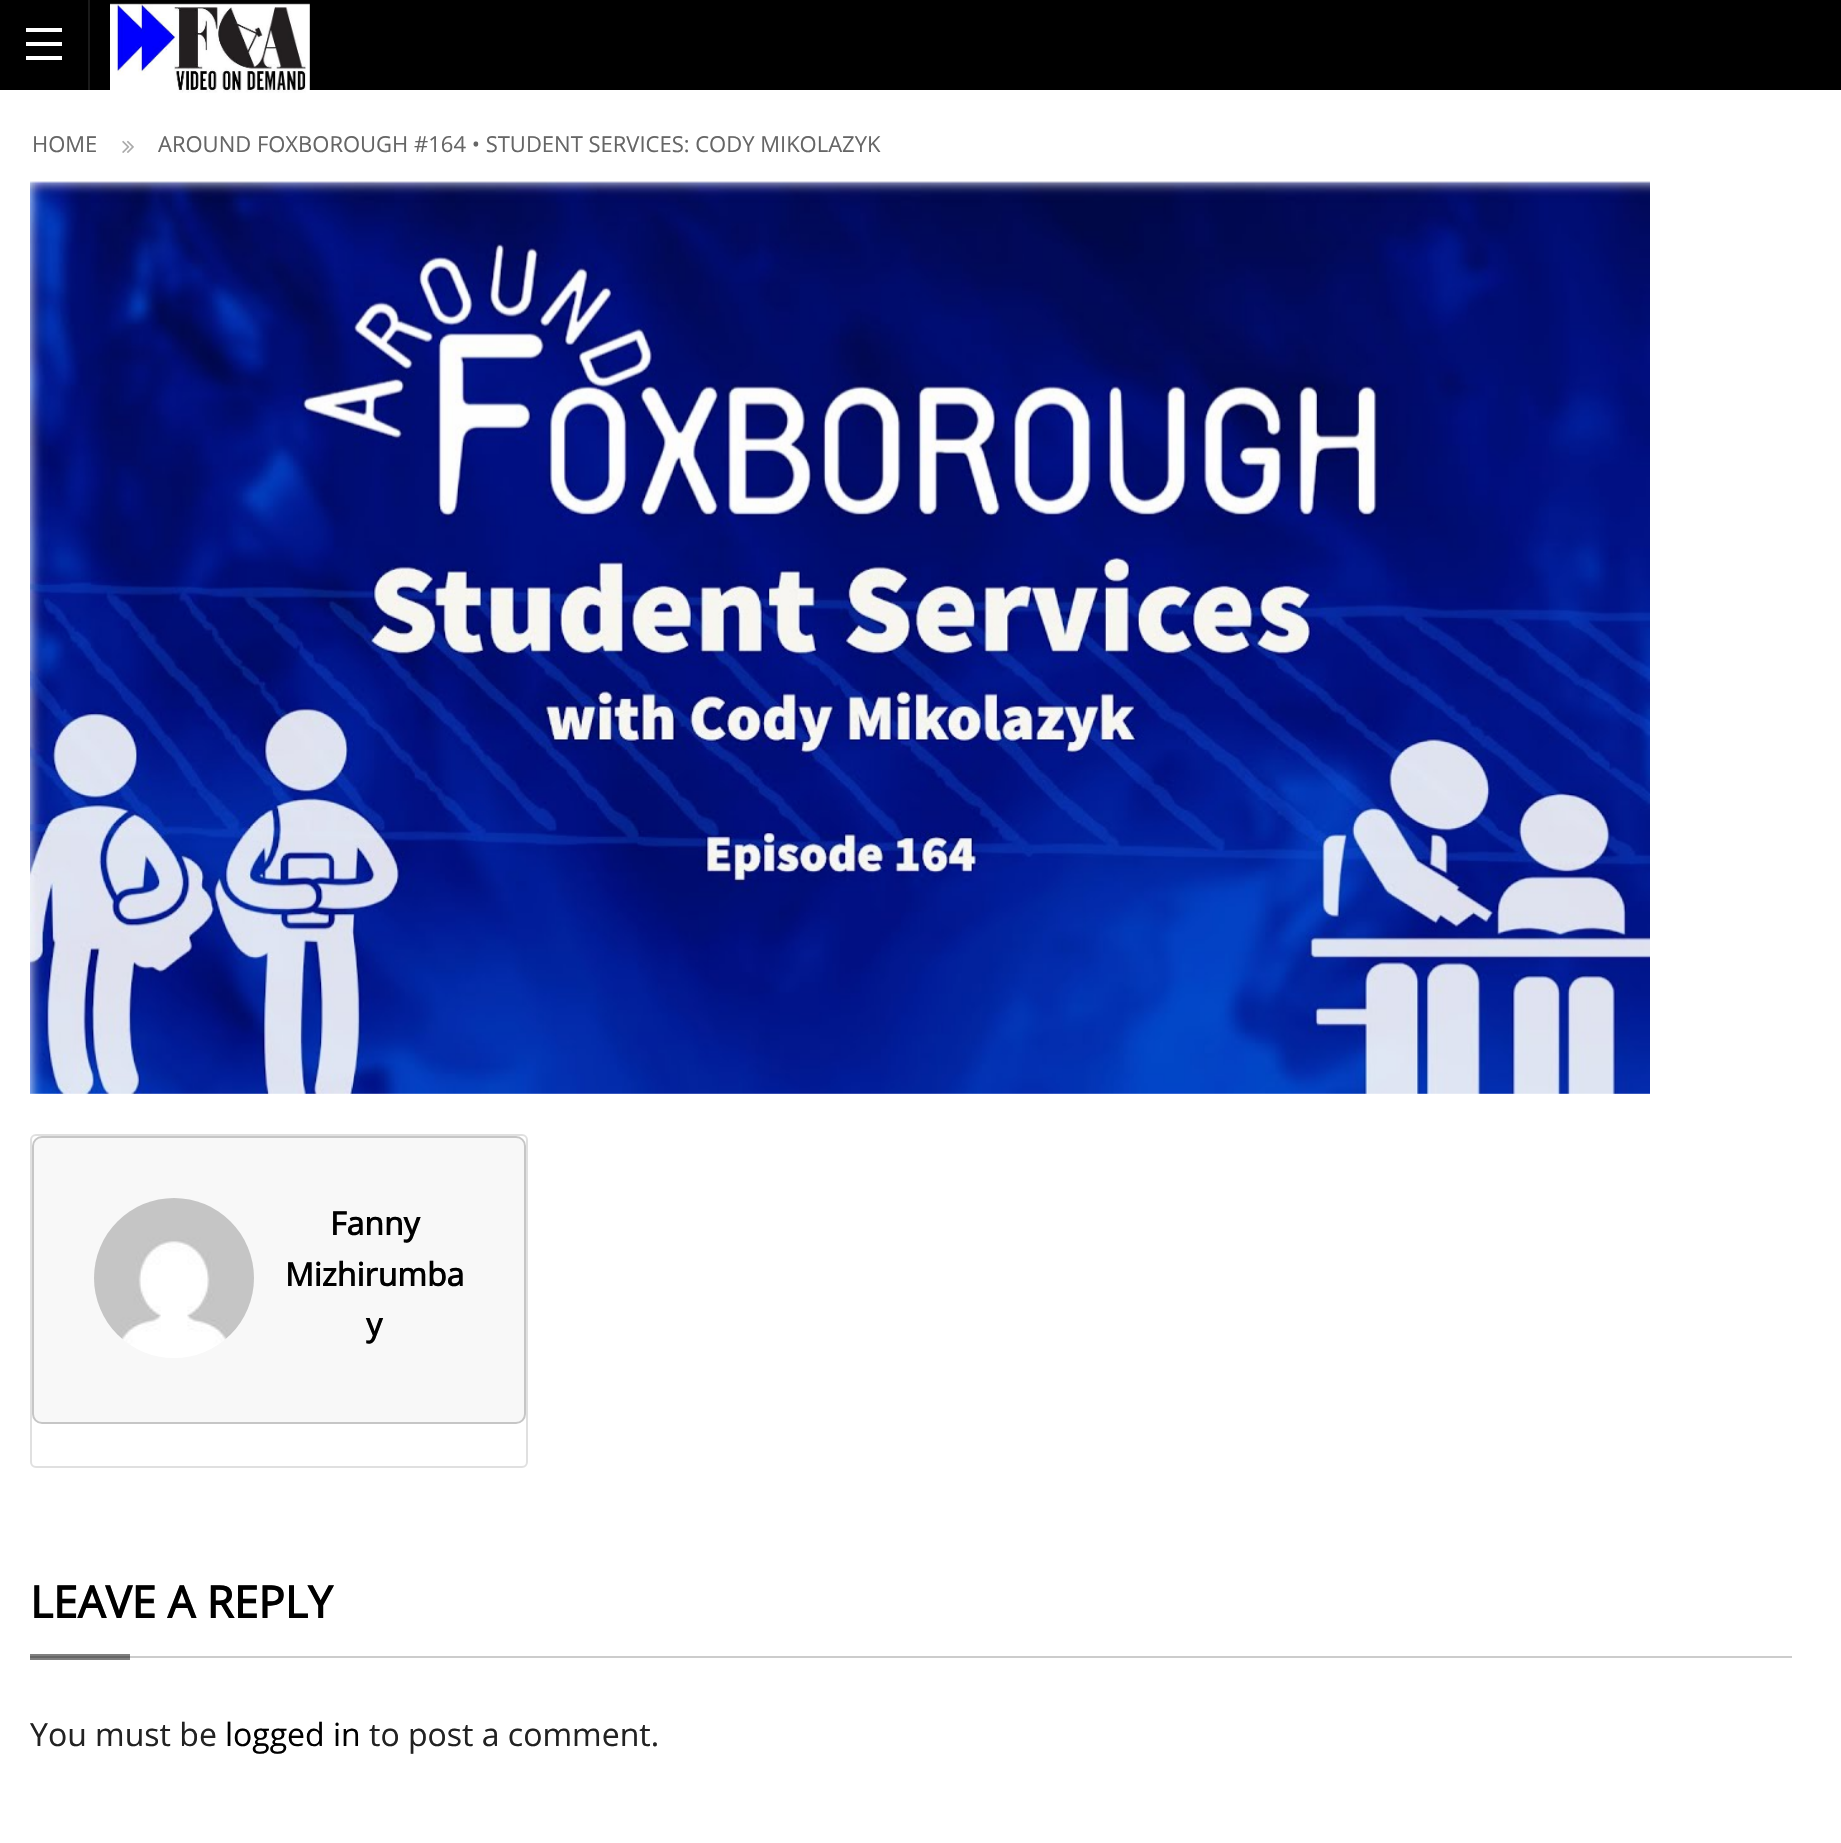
void draw(SkCanvas* canvas) {
    SkPaint paint;
    paint.setAntiAlias(true);
    auto face = [&](const char* family, int weight, float size, bool italic = false) {
        SkFontStyle style(weight, SkFontStyle::kNormal_Width,
            italic ? SkFontStyle::kItalic_Slant : SkFontStyle::kUpright_Slant);
        SkFont result(fontMgr->matchFamilyStyle(family, style), size);
        result.setSubpixel(true);
        return result;
    };
    auto write = [&](const char* s, float x, float y, const SkFont& font, SkColor color) {
        SkPaint ink(SkColor4f::FromColor(color));
        ink.setAntiAlias(true);
        canvas->drawString(s, x, y, font, ink);
    };
    auto block = [&](float x, float y, float w, float h, SkColor color) {
        SkPaint ink(SkColor4f::FromColor(color));
        ink.setAntiAlias(true);
        canvas->drawRect(SkRect::MakeXYWH(x, y, w, h), ink);
    };
    auto card = [&](float x, float y, float w, float h, float radius, SkColor color) {
        SkPaint ink(SkColor4f::FromColor(color));
        ink.setAntiAlias(true);
        canvas->drawRoundRect(SkRect::MakeXYWH(x, y, w, h), radius, radius, ink);
    };
    auto paste = [&](const char* path, float x, float y, float w, float h) {
        auto image = SkImages::DeferredFromEncodedData(SkData::MakeFromFileName(path));
        canvas->drawImageRect(image, SkRect::MakeXYWH(x, y, w, h), SkSamplingOptions());
    };
    canvas->clear(SK_ColorWHITE);
    block(30, 1654, 100, 6, SkColorSetRGB(128, 128, 128));
    block(0, 0, 1841, 90, SK_ColorBLACK);
    block(88, 0, 2, 90, SkColorSetRGB(26, 26, 26));
    block(26, 56, 36, 4, SK_ColorWHITE);
    block(26, 42, 36, 4, SK_ColorWHITE);
    block(26, 28, 36, 4, SK_ColorWHITE);
    paste("pic1.png", 110, 3, 200, 90);
    auto kFont1 = face("Open Sans", 400, 22);
    write("HOME", 32, 152, kFont1, SkColorSetRGB(102, 102, 102));
    paste("pic2.png", 122, 140, 12, 13);
    write("AROUND FOXBOROUGH #164 • STUDENT SERVICES: CODY MIKOLAZYK", 158, 152, kFont1, SkColorSetRGB(102, 102, 102));
    paste("pic3.png", 30, 181, 1620, 913);
    paint.setStyle(SkPaint::kStroke_Style);
    paint.setStrokeWidth(2);
    paint.setColor(SkColorSetRGB(224, 224, 224));
    canvas->drawRoundRect(SkRect::MakeXYWH(31, 1135, 496, 332), 5, 5, paint);
    card(32, 1136, 494, 288, 10, SkColorSetRGB(248, 248, 248));
    paint.setColor(SkColorSetARGB(51, 0, 0, 0));
    canvas->drawRoundRect(SkRect::MakeXYWH(33, 1137, 492, 286), 9, 9, paint);
    paste("pic4.png", 94, 1198, 160, 160);
    auto kFont2 = face("Open Sans", 700, 32);
    write("Fanny", 330, 1235, kFont2, SK_ColorBLACK);
    write("Mizhirumba", 285, 1286, kFont2, SK_ColorBLACK);
    write("y", 366, 1336, kFont2, SK_ColorBLACK);
    block(130, 1656, 1662, 2, SkColorSetRGB(204, 204, 204));
    block(30, 1656, 100, 2, SkColorSetRGB(102, 102, 102));
    auto kFont3 = face("Open Sans", 700, 44);
    write("LEAVE A REPLY", 30, 1618, kFont3, SK_ColorBLACK);
    auto kFont4 = face("Open Sans", 400, 32);
    write("You must be", 30, 1746, kFont4, SkColorSetRGB(34, 34, 34));
    write("logged in", 225, 1746, kFont4, SK_ColorBLACK);
    write("to post a comment.", 369, 1746, kFont4, SkColorSetRGB(34, 34, 34));
}
